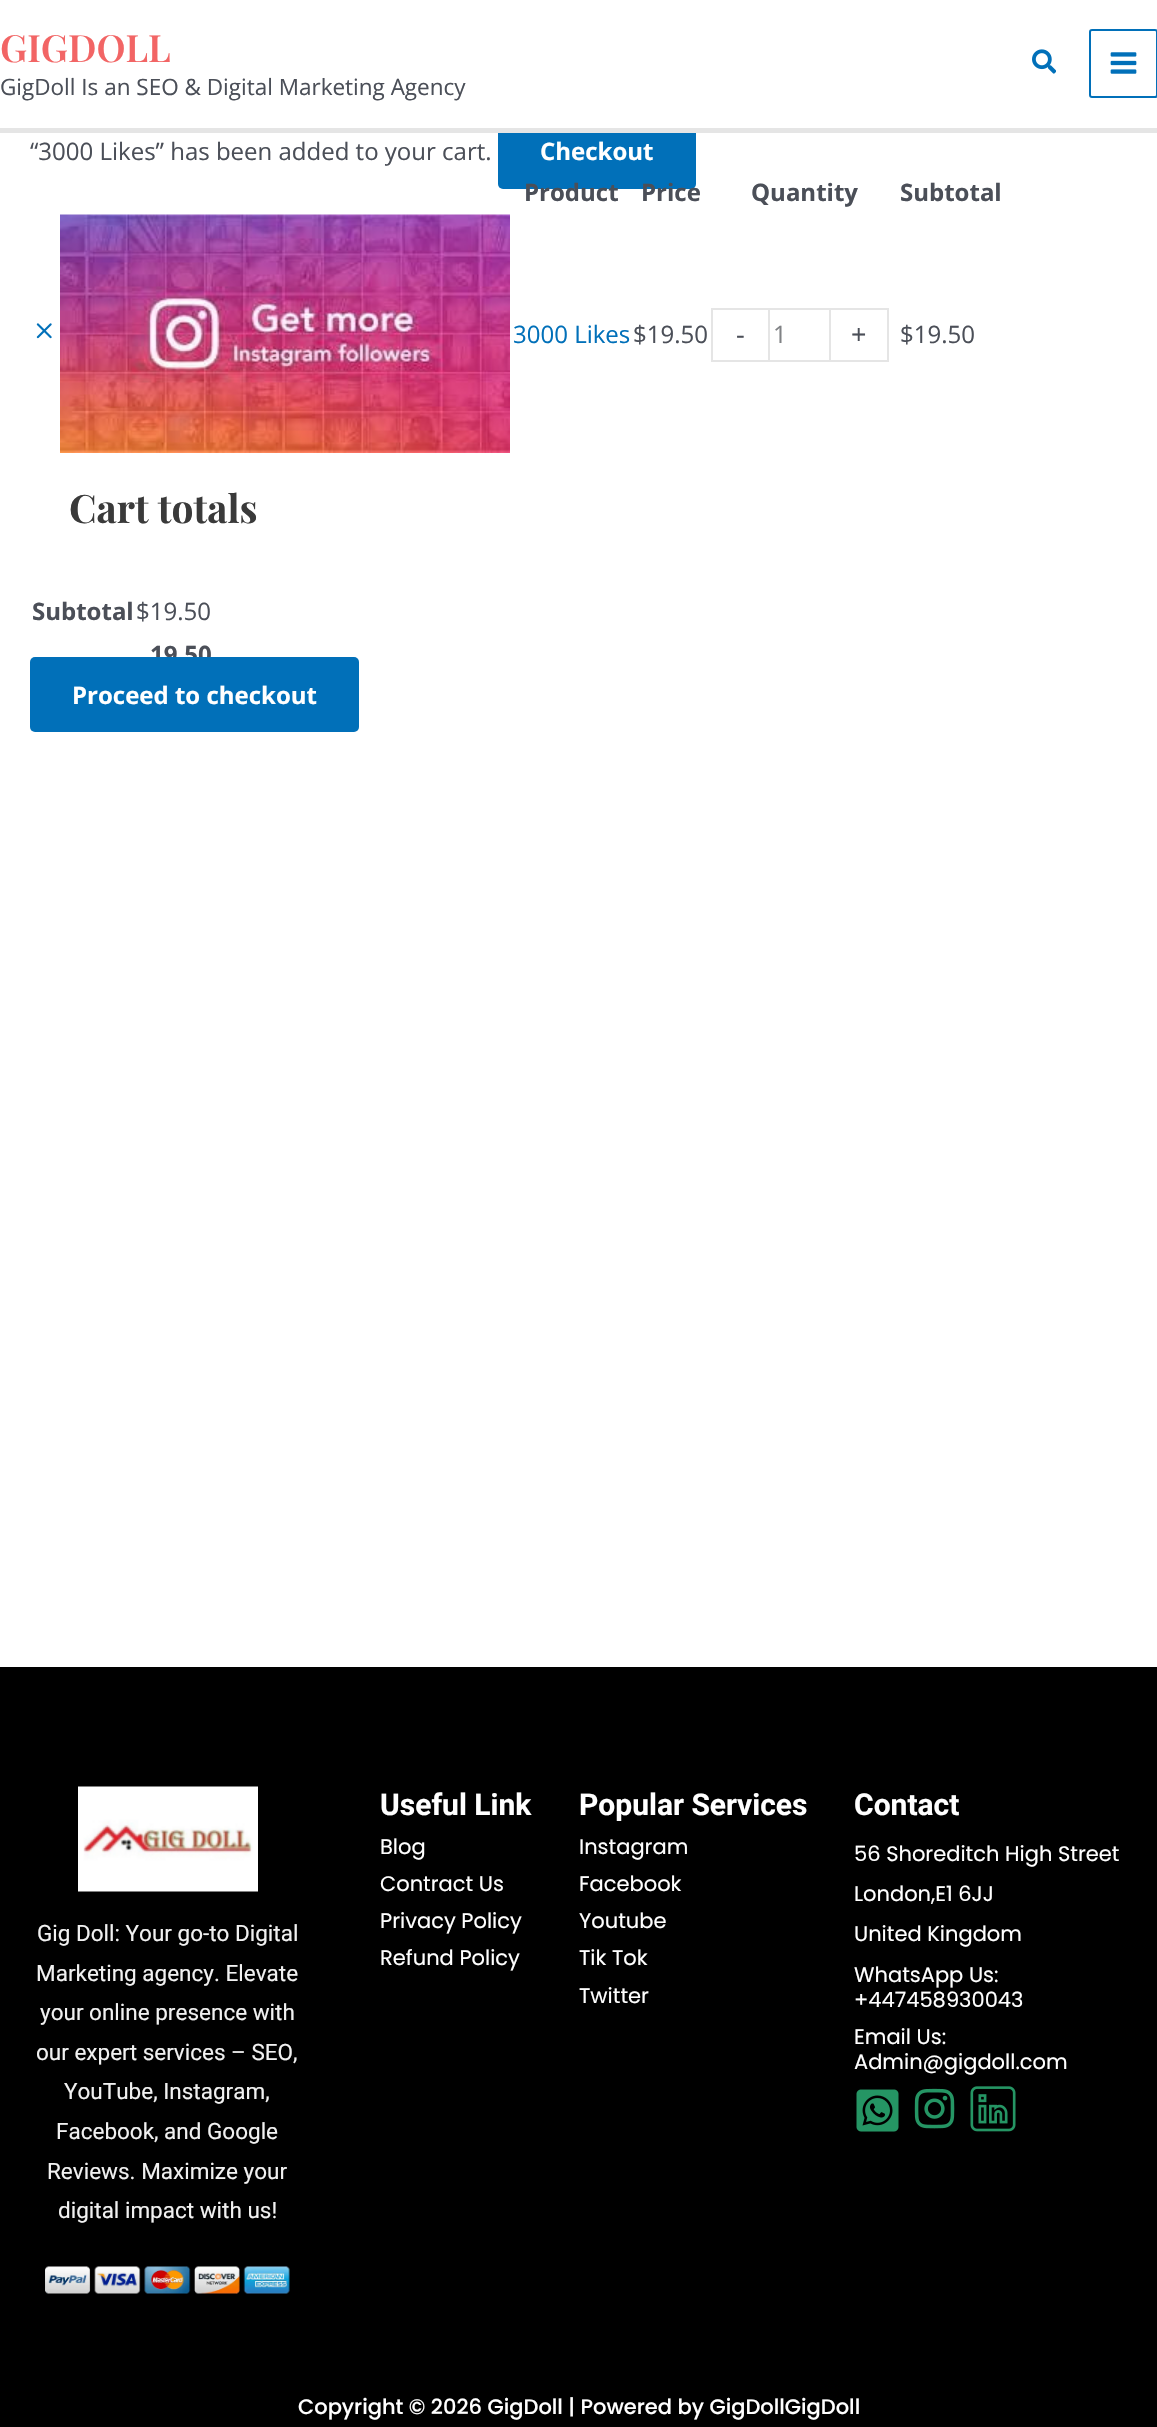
void draw(SkCanvas* canvas) {
    SkPaint paint;
    paint.setAntiAlias(true);
    auto face = [&](const char* family, int weight, float size, bool italic = false) {
        SkFontStyle style(weight, SkFontStyle::kNormal_Width,
            italic ? SkFontStyle::kItalic_Slant : SkFontStyle::kUpright_Slant);
        SkFont result(fontMgr->matchFamilyStyle(family, style), size);
        result.setSubpixel(true);
        return result;
    };
    auto write = [&](const char* s, float x, float y, const SkFont& font, SkColor color) {
        SkPaint ink(SkColor4f::FromColor(color));
        ink.setAntiAlias(true);
        canvas->drawString(s, x, y, font, ink);
    };
    auto block = [&](float x, float y, float w, float h, SkColor color) {
        SkPaint ink(SkColor4f::FromColor(color));
        ink.setAntiAlias(true);
        canvas->drawRect(SkRect::MakeXYWH(x, y, w, h), ink);
    };
    auto card = [&](float x, float y, float w, float h, float radius, SkColor color) {
        SkPaint ink(SkColor4f::FromColor(color));
        ink.setAntiAlias(true);
        canvas->drawRoundRect(SkRect::MakeXYWH(x, y, w, h), radius, radius, ink);
    };
    auto paste = [&](const char* path, float x, float y, float w, float h) {
        auto image = SkImages::DeferredFromEncodedData(SkData::MakeFromFileName(path));
        canvas->drawImageRect(image, SkRect::MakeXYWH(x, y, w, h), SkSamplingOptions());
    };
    canvas->clear(SK_ColorWHITE);
    card(498, 114, 198, 75, 5, SkColorSetRGB(1, 112, 185));
    block(498, 114, 198, 14, SK_ColorWHITE);
    block(0, 128, 1157, 5, SkColorSetRGB(229, 229, 229));
    auto kFont1 = face("Playfair Display", 600, 37.5f);
    write("GIGDOLL", 0, 62, kFont1, SkColorSetRGB(242, 101, 101));
    auto kFont2 = face("Open Sans", 400, 22.5f);
    write("GigDoll Is an SEO & Digital Marketing Agency", 0, 95, kFont2, SkColorSetRGB(75, 79, 88));
    paste("pic1.png", 1032, 49, 24, 25);
    paint.setStyle(SkPaint::kStroke_Style);
    paint.setStrokeWidth(2);
    paint.setColor(SkColorSetRGB(1, 112, 185));
    canvas->drawRoundRect(SkRect::MakeXYWH(1090, 30, 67, 67), 2, 2, paint);
    paste("pic2.png", 1110, 52, 27, 22);
    auto kFont3 = face("Open Sans", 400, 24);
    write("“3000 Likes” has been added to your cart.", 30, 160, kFont3, SkColorSetRGB(75, 79, 88));
    auto kFont4 = face("Open Sans", 700, 24);
    write("Checkout", 540, 160, kFont4, SK_ColorWHITE);
    write("Product", 524, 201, kFont4, SkColorSetRGB(75, 79, 88));
    write("Price", 641, 201, kFont4, SkColorSetRGB(75, 79, 88));
    write("Quantity", 751, 201, kFont4, SkColorSetRGB(75, 79, 88));
    write("Subtotal", 900, 201, kFont4, SkColorSetRGB(75, 79, 88));
    paste("pic3.png", 36, 323, 16, 16);
    paste("pic4.png", 60, 214, 450, 239);
    write("3000 Likes", 513, 343, kFont3, SkColorSetRGB(1, 112, 185));
    write("$19.50", 633, 343, kFont3, SkColorSetRGB(75, 79, 88));
    block(711, 308, 57, 2, SkColorSetRGB(229, 229, 229));
    block(711, 360, 57, 2, SkColorSetRGB(229, 229, 229));
    block(711, 308, 2, 54, SkColorSetRGB(229, 229, 229));
    auto kFont5 = face("Open Sans", 400, 27);
    write("-", 736, 344, kFont5, SkColorSetRGB(75, 79, 88));
    paint.setColor(SkColorSetRGB(229, 229, 229));
    canvas->drawRect(SkRect::MakeXYWH(769, 309, 61, 52), paint);
    write("1", 773, 343, kFont3, SkColorSetRGB(128, 130, 133));
    block(831, 308, 57, 2, SkColorSetRGB(229, 229, 229));
    block(887, 308, 2, 54, SkColorSetRGB(229, 229, 229));
    block(831, 360, 57, 2, SkColorSetRGB(229, 229, 229));
    write("+", 851, 344, kFont5, SkColorSetRGB(75, 79, 88));
    write("$19.50", 900, 343, kFont3, SkColorSetRGB(75, 79, 88));
    auto kFont6 = face("Playfair Display", 700, 39);
    write("Cart totals", 69, 523, kFont6, SkColorSetRGB(58, 58, 58));
    write("Subtotal", 32, 620, kFont4, SkColorSetRGB(75, 79, 88));
    write("$19.50", 136, 620, kFont3, SkColorSetRGB(75, 79, 88));
    write("19.50", 150, 663, kFont4, SkColorSetRGB(75, 79, 88));
    card(30, 657, 329, 75, 5, SkColorSetRGB(1, 112, 185));
    write("Proceed to checkout", 72, 704, kFont4, SK_ColorWHITE);
    block(0, 1667, 1157, 760, SK_ColorBLACK);
    paste("pic5.png", 78, 1786, 180, 106);
    auto kFont7 = face("Roboto", 400, 22.5f);
    write("Gig Doll: Your go-to Digital", 37, 1941, kFont7, SkColorSetRGB(241, 241, 241));
    write("Marketing agency. Elevate", 36, 1981, kFont7, SkColorSetRGB(241, 241, 241));
    write("your online presence with", 40, 2020, kFont7, SkColorSetRGB(241, 241, 241));
    write("our expert services – SEO,", 36, 2060, kFont7, SkColorSetRGB(241, 241, 241));
    write("YouTube, Instagram,", 64, 2099, kFont7, SkColorSetRGB(241, 241, 241));
    write("Facebook, and Google", 56, 2139, kFont7, SkColorSetRGB(241, 241, 241));
    write("Reviews. Maximize your", 47, 2179, kFont7, SkColorSetRGB(241, 241, 241));
    write("digital impact with us!", 58, 2218, kFont7, SkColorSetRGB(241, 241, 241));
    paste("pic6.png", 45, 2266, 245, 28);
    auto kFont8 = face("Roboto", 700, 30);
    write("Useful Link", 380, 1815, kFont8, SK_ColorWHITE);
    auto kFont9 = face("Poppins", 400, 21);
    write("Blog", 380, 1854, kFont9, SK_ColorWHITE);
    write("Contract Us", 380, 1891, kFont9, SK_ColorWHITE);
    write("Privacy Policy", 380, 1928, kFont9, SK_ColorWHITE);
    write("Refund Policy", 380, 1965, kFont9, SK_ColorWHITE);
    write("Popular Services", 579, 1815, kFont8, SK_ColorWHITE);
    write("Instagram", 579, 1854, kFont9, SK_ColorWHITE);
    write("Facebook", 579, 1891, kFont9, SK_ColorWHITE);
    write("Youtube", 579, 1928, kFont9, SK_ColorWHITE);
    write("Tik Tok", 579, 1965, kFont9, SK_ColorWHITE);
    write("Twitter", 579, 2003, kFont9, SK_ColorWHITE);
    write("Contact", 854, 1815, kFont8, SK_ColorWHITE);
    write("56 Shoreditch High Street", 854, 1861, kFont9, SK_ColorWHITE);
    write("London,E1 6JJ", 854, 1901, kFont9, SK_ColorWHITE);
    write("United Kingdom", 854, 1941, kFont9, SK_ColorWHITE);
    write("WhatsApp Us:", 854, 1982, kFont9, SK_ColorWHITE);
    write("+447458930043", 854, 2007, kFont9, SK_ColorWHITE);
    write("Email Us:", 854, 2044, kFont9, SK_ColorWHITE);
    write("Admin@gigdoll.com", 854, 2069, kFont9, SK_ColorWHITE);
    paste("pic7.png", 856, 2089, 43, 43);
    paste("pic8.png", 914, 2088, 41, 41);
    paste("pic9.png", 970, 2086, 46, 46);
    auto kFont10 = face("Poppins", 500, 21);
    write("Copyright © 2026 GigDoll | Powered by GigDollGigDoll", 298, 2414, kFont10, SK_ColorWHITE);
}
